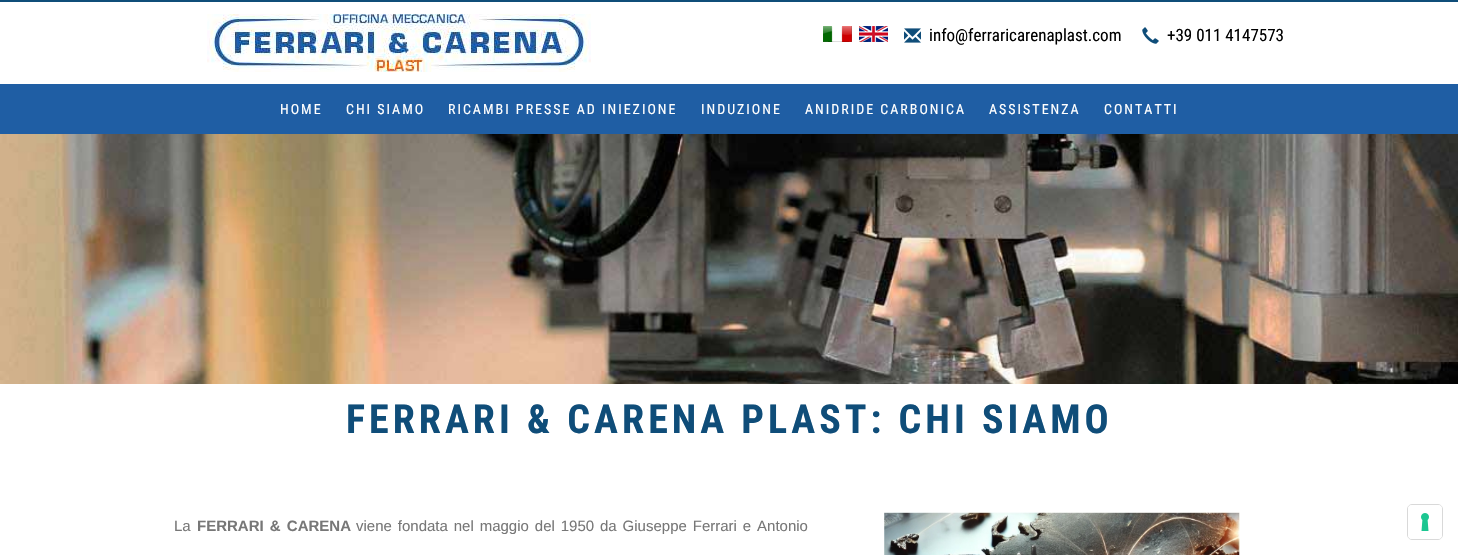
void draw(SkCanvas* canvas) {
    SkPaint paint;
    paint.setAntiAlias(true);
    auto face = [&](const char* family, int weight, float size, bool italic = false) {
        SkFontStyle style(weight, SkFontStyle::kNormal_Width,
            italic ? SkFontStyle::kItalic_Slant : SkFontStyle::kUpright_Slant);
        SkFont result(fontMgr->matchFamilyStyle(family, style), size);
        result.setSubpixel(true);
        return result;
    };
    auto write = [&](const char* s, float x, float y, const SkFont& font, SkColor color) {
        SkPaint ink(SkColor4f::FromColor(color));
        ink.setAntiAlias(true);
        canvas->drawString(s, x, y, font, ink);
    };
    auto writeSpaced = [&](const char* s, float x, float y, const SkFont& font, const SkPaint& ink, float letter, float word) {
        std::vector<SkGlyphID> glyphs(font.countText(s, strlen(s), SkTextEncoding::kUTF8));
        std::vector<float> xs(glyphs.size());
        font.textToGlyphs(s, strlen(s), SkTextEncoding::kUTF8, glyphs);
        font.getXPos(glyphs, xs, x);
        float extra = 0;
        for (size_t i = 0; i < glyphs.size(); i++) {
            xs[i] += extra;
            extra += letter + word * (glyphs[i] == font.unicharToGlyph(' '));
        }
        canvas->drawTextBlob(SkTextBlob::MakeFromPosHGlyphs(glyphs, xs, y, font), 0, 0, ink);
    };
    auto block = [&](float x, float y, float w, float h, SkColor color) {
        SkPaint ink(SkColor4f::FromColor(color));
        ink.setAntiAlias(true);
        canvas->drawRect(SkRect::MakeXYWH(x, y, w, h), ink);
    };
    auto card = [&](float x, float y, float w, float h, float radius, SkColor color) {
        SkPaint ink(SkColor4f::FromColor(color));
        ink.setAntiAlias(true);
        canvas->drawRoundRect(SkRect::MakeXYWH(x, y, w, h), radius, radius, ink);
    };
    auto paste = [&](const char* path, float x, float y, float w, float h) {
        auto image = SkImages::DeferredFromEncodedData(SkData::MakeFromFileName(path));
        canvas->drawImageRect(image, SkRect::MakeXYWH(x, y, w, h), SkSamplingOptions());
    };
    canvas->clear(SK_ColorWHITE);
    block(0, 0, 1458, 2, SkColorSetRGB(15, 77, 121));
    paste("pic1.png", 207, 14, 384, 58);
    paste("pic2.png", 823, 26, 29, 16);
    paste("pic3.png", 859, 26, 29, 16);
    paste("pic4.png", 904, 28, 17, 15);
    auto kFont1 = face("Roboto Condensed", 400, 17);
    write("info@ferraricarenaplast.com", 929, 41, kFont1, SK_ColorBLACK);
    paste("pic5.png", 1142, 27, 17, 17);
    write("+39 011 4147573", 1167, 41, kFont1, SK_ColorBLACK);
    block(0, 84, 1458, 50, SkColorSetRGB(31, 94, 164));
    auto kFont2 = face("Roboto Condensed", 400, 14);
    paint.setColor(SK_ColorWHITE);
    writeSpaced("HOME", 280, 114, kFont2, paint, 2, 0);
    writeSpaced("CHI SIAMO", 346, 114, kFont2, paint, 2, 0);
    writeSpaced("RICAMBI PRESSE AD INIEZIONE", 448, 114, kFont2, paint, 2, 0);
    writeSpaced("INDUZIONE", 701, 114, kFont2, paint, 2, 0);
    writeSpaced("ANIDRIDE CARBONICA", 805, 114, kFont2, paint, 2, 0);
    writeSpaced("ASSISTENZA", 989, 114, kFont2, paint, 2, 0);
    writeSpaced("CONTATTI", 1104, 114, kFont2, paint, 2, 0);
    paste("pic6.png", 0, 134, 1458, 250);
    auto kFont3 = face("Roboto Condensed", 700, 40);
    paint.setColor(SkColorSetRGB(15, 77, 121));
    writeSpaced("FERRARI & CARENA PLAST: CHI SIAMO", 346, 433, kFont3, paint, 4, 0);
    auto kFont4 = face("Liberation Sans", 400, 15);
    write("La", 174, 531, kFont4, SkColorSetRGB(119, 119, 119));
    auto kFont5 = face("Liberation Sans", 700, 15);
    paint.setColor(SkColorSetRGB(119, 119, 119));
    writeSpaced("FERRARI & CARENA", 197, 531, kFont5, paint, 0, 2);
    writeSpaced("viene fondata nel maggio del 1950 da Giuseppe Ferrari e Antonio", 356, 531, kFont4, paint, 0, 1.75f);
    paste("pic7.png", 884, 512, 356, 43);
    paint.setStyle(SkPaint::kStroke_Style);
    paint.setStrokeWidth(1);
    paint.setColor(SkColorSetRGB(217, 217, 217));
    canvas->drawRoundRect(SkRect::MakeXYWH(1407.5f, 504.5f, 35, 35), 4.5f, 4.5f, paint);
    card(1408, 505, 34, 34, 4, SK_ColorWHITE);
    paste("pic8.png", 1421, 513, 8, 18);
}
